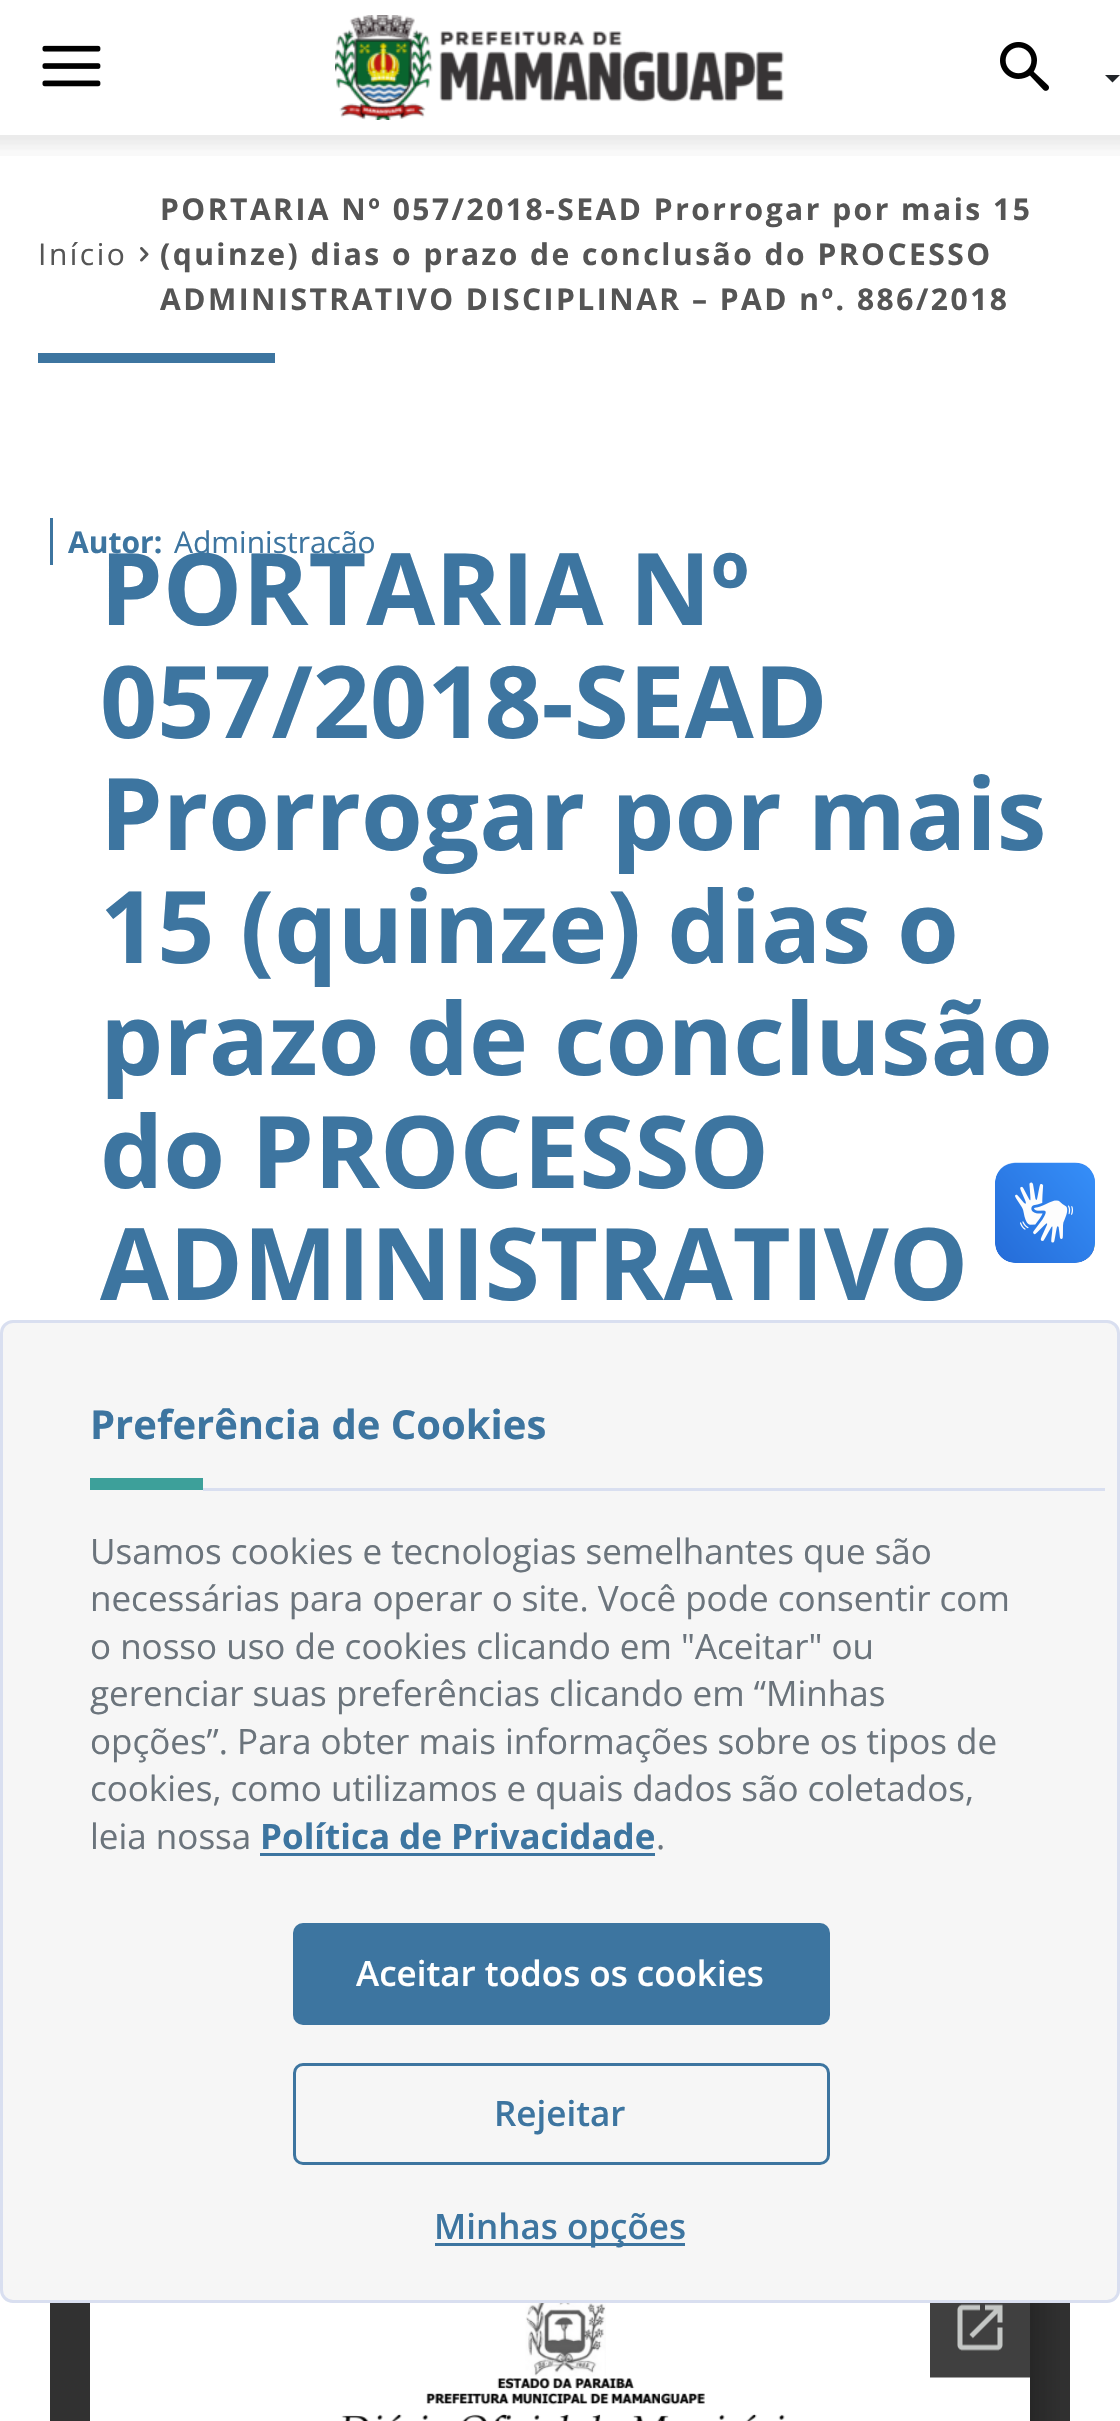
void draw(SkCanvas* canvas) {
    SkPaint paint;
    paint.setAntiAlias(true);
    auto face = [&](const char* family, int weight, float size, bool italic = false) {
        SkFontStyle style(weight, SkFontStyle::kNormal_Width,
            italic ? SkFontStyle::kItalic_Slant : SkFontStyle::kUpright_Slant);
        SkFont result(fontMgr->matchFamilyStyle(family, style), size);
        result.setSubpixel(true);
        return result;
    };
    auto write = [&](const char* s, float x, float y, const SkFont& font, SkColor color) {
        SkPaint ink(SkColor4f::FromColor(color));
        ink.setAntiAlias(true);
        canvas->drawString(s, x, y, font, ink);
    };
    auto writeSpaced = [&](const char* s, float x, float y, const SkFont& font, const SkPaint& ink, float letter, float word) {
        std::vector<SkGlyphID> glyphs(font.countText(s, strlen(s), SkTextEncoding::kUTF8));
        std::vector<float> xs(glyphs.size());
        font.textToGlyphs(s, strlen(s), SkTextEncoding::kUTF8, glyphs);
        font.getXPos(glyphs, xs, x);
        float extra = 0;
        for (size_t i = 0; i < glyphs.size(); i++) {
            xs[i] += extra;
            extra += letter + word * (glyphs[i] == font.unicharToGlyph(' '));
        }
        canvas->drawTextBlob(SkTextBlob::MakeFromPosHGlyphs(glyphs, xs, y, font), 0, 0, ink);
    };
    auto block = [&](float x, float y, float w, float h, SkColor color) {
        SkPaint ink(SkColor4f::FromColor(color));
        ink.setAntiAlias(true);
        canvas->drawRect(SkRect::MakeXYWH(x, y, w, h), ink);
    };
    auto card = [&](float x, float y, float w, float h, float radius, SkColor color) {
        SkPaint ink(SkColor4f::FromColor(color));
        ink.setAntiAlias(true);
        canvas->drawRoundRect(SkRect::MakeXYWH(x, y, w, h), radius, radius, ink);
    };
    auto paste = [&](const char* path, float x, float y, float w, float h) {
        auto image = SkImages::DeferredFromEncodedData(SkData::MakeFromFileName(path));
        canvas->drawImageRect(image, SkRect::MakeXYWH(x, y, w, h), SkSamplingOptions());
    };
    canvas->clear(SK_ColorWHITE);
    paste("pic1.png", 42, 45, 59, 42);
    paste("pic2.png", 335, 15, 449, 105);
    paste("pic3.png", 1000, 42, 49, 49);
    paint.setColor(SkColorSetRGB(33, 37, 41));
    canvas->drawPath(SkPathBuilder().moveTo(1105, 75).lineTo(1120, 75).lineTo(1112.5f, 82.5f).close().detach(), paint);
    paste("pic4.png", 0, 135, 1120, 21);
    auto kFont1 = face("Open Sans", 400, 30);
    paint.setColor(SkColorSetRGB(85, 85, 85));
    writeSpaced("Início", 38, 265, kFont1, paint, 2.5f, 0);
    paste("pic5.png", 140, 247, 9, 15);
    auto kFont2 = face("Open Sans", 700, 30);
    writeSpaced("PORTARIA Nº 057/2018-SEAD Prorrogar por mais 15", 160, 220, kFont2, paint, 2.5f, 0);
    writeSpaced("(quinze) dias o prazo de conclusão do PROCESSO", 160, 265, kFont2, paint, 2.5f, 0);
    writeSpaced("ADMINISTRATIVO DISCIPLINAR – PAD nº. 886/2018", 160, 310, kFont2, paint, 2.5f, 0);
    block(38, 353, 237, 10, SkColorSetRGB(61, 117, 160));
    block(50, 518, 3, 47, SkColorSetRGB(61, 117, 160));
    write("Autor:", 68, 553, kFont2, SkColorSetRGB(61, 117, 160));
    write("Administração", 174, 553, kFont1, SkColorSetRGB(61, 117, 160));
    auto kFont3 = face("Open Sans", 700, 100);
    write("PORTARIA Nº", 100, 625, kFont3, SkColorSetRGB(61, 117, 160));
    write("057/2018-SEAD", 100, 738, kFont3, SkColorSetRGB(61, 117, 160));
    write("Prorrogar por mais", 100, 850, kFont3, SkColorSetRGB(61, 117, 160));
    write("15 (quinze) dias o", 100, 963, kFont3, SkColorSetRGB(61, 117, 160));
    write("prazo de conclusão", 100, 1075, kFont3, SkColorSetRGB(61, 117, 160));
    write("do PROCESSO", 100, 1188, kFont3, SkColorSetRGB(61, 117, 160));
    write("ADMINISTRATIVO", 100, 1300, kFont3, SkColorSetRGB(61, 117, 160));
    paste("pic6.png", 50, 2303, 1020, 118);
    paste("pic7.png", 995, 1162, 100, 101);
    paste("pic8.png", 995, 1163, 100, 100);
    paint.setColor(SkColorSetRGB(246, 246, 246));
    canvas->drawRoundRect(SkRect::MakeXYWH(1.5f, 1321.5f, 1117, 980), 11.5f, 11.5f, paint);
    paint.setStyle(SkPaint::kStroke_Style);
    paint.setStrokeWidth(3);
    paint.setColor(SkColorSetRGB(217, 223, 240));
    canvas->drawRoundRect(SkRect::MakeXYWH(1.5f, 1321.5f, 1117, 980), 11.5f, 11.5f, paint);
    auto kFont4 = face("Open Sans", 700, 40);
    write("Preferência de Cookies", 90, 1439, kFont4, SkColorSetRGB(61, 117, 160));
    block(90, 1478, 113, 12, SkColorSetRGB(61, 160, 154));
    block(203, 1488, 902, 3, SkColorSetRGB(217, 223, 240));
    auto kFont5 = face("Open Sans", 400, 35);
    write("Usamos cookies e tecnologias semelhantes que são", 90, 1564, kFont5, SkColorSetRGB(107, 116, 124));
    write("necessárias para operar o site. Você pode consentir com", 90, 1611, kFont5, SkColorSetRGB(107, 116, 124));
    write("o nosso uso de cookies clicando em \"Aceitar\" ou", 90, 1659, kFont5, SkColorSetRGB(107, 116, 124));
    write("gerenciar suas preferências clicando em “Minhas", 90, 1706, kFont5, SkColorSetRGB(107, 116, 124));
    write("opções”. Para obter mais informações sobre os tipos de", 90, 1754, kFont5, SkColorSetRGB(107, 116, 124));
    write("cookies, como utilizamos e quais dados são coletados,", 90, 1801, kFont5, SkColorSetRGB(107, 116, 124));
    write("leia nossa", 90, 1849, kFont5, SkColorSetRGB(107, 116, 124));
    auto kFont6 = face("Open Sans", 700, 35);
    write("Política de Privacidade", 260, 1849, kFont6, SkColorSetRGB(61, 117, 160));
    block(260, 1853, 395, 3, SkColorSetRGB(61, 117, 160));
    write(".", 656, 1849, kFont5, SkColorSetRGB(107, 116, 124));
    card(293, 1923, 537, 102, 10, SkColorSetRGB(61, 117, 160));
    auto kFont7 = face("Open Sans", 600, 35);
    write("Aceitar todos os cookies", 356, 1986, kFont7, SK_ColorWHITE);
    paint.setColor(SkColorSetRGB(61, 117, 160));
    canvas->drawRoundRect(SkRect::MakeXYWH(294.5f, 2064.5f, 534, 99), 8.5f, 8.5f, paint);
    write("Rejeitar", 494, 2126, kFont7, SkColorSetRGB(61, 117, 160));
    block(435, 2243, 250, 3, SkColorSetRGB(61, 117, 160));
    write("Minhas opções", 434, 2239, kFont7, SkColorSetRGB(61, 117, 160));
}
